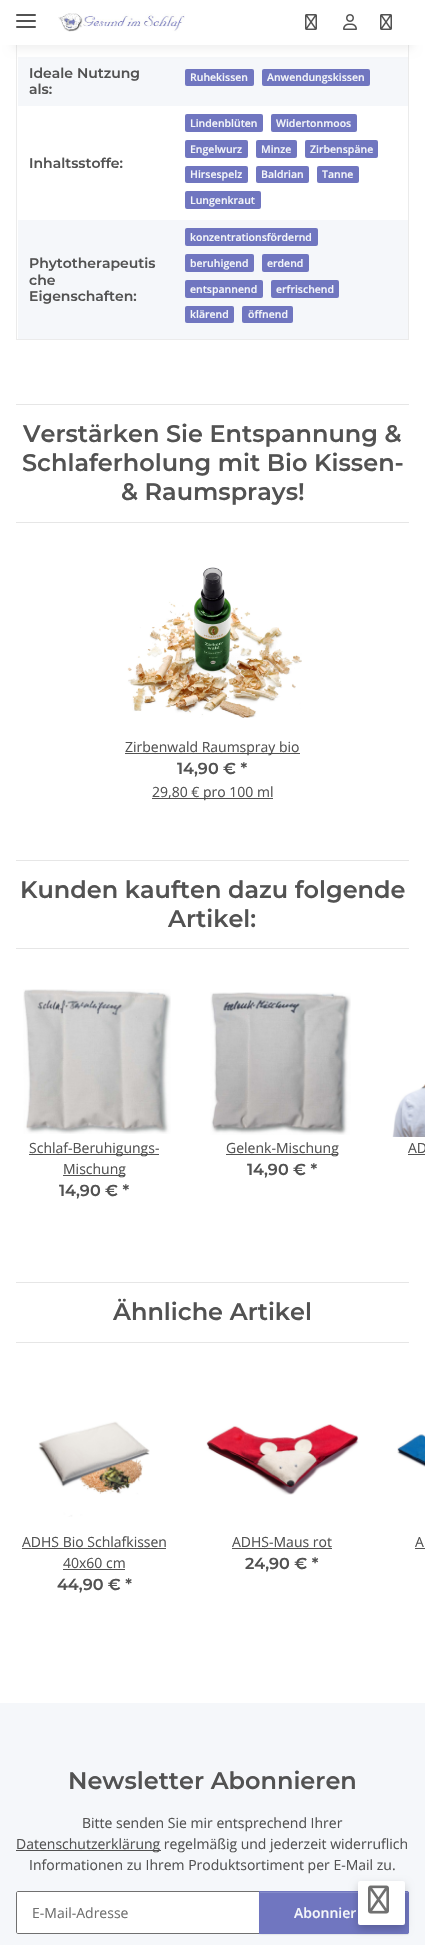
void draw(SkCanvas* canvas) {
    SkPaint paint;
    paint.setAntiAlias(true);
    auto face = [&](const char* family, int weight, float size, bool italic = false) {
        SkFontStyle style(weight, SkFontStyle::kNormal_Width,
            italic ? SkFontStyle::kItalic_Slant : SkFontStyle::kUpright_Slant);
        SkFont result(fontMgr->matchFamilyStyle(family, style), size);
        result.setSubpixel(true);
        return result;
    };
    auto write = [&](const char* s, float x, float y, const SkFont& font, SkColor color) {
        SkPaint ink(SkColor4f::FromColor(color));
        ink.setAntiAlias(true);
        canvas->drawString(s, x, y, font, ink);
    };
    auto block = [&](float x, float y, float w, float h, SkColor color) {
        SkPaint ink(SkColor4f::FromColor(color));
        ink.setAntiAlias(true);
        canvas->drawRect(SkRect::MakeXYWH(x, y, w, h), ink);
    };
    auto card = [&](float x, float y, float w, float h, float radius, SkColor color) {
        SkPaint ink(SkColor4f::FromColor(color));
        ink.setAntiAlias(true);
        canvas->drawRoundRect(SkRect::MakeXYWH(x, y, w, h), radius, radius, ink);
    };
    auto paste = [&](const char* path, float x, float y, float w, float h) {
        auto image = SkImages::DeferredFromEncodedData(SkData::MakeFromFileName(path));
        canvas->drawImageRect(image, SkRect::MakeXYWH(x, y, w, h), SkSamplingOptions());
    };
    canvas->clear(SkColorSetRGB(245, 247, 250));
    block(0, 45, 425, 1658, SK_ColorWHITE);
    block(18, 57, 390, 49, SkColorSetRGB(245, 247, 250));
    block(408, 45, 1, 295, SkColorSetRGB(235, 235, 235));
    block(16, 339, 393, 1, SkColorSetRGB(235, 235, 235));
    block(16, 45, 1, 295, SkColorSetRGB(235, 235, 235));
    paint.setColor(SkColorSetARGB(15, 0, 0, 0));
    paint.setMaskFilter(SkMaskFilter::MakeBlur(kNormal_SkBlurStyle, 4.5f));
    canvas->drawRect(SkRect::MakeXYWH(12, 28, 401, 21), paint);
    paint.setMaskFilter(nullptr);
    block(0, 0, 425, 45, SK_ColorWHITE);
    card(16, 20, 20, 2, 1, SkColorSetRGB(82, 82, 82));
    card(16, 14, 20, 2, 1, SkColorSetRGB(82, 82, 82));
    card(16, 26, 20, 2, 1, SkColorSetRGB(82, 82, 82));
    paste("pic1.png", 58, 13, 127, 19);
    paste("pic2.png", 305, 14, 12, 16);
    paste("pic3.png", 343, 14, 14, 16);
    paste("pic2.png", 380, 14, 12, 16);
    auto kFont1 = face("Montserrat", 600, 14);
    write("Ideale Nutzung", 29, 78, kFont1, SkColorSetRGB(82, 82, 82));
    write("als:", 29, 94, kFont1, SkColorSetRGB(82, 82, 82));
    card(185, 69, 69, 17, 2, SkColorSetRGB(112, 118, 192));
    auto kFont2 = face("Open Sans", 600, 10.5f);
    write("Ruhekissen", 190, 81, kFont2, SkColorSetRGB(245, 247, 250));
    card(262, 69, 108, 17, 2, SkColorSetRGB(112, 118, 192));
    write("Anwendungskissen", 267, 81, kFont2, SkColorSetRGB(245, 247, 250));
    write("Inhaltsstoffe:", 29, 168, kFont1, SkColorSetRGB(82, 82, 82));
    card(185, 114, 78, 18, 2, SkColorSetRGB(112, 118, 192));
    write("Lindenblüten", 190, 127, kFont2, SkColorSetRGB(245, 247, 250));
    card(271, 114, 86, 18, 2, SkColorSetRGB(112, 118, 192));
    write("Widertonmoos", 276, 127, kFont2, SkColorSetRGB(245, 247, 250));
    card(185, 140, 63, 18, 2, SkColorSetRGB(112, 118, 192));
    write("Engelwurz", 190, 153, kFont2, SkColorSetRGB(245, 247, 250));
    card(256, 140, 41, 18, 2, SkColorSetRGB(112, 118, 192));
    write("Minze", 261, 153, kFont2, SkColorSetRGB(245, 247, 250));
    card(305, 140, 73, 18, 2, SkColorSetRGB(112, 118, 192));
    write("Zirbenspäne", 310, 153, kFont2, SkColorSetRGB(245, 247, 250));
    card(185, 166, 63, 17, 2, SkColorSetRGB(112, 118, 192));
    write("Hirsespelz", 190, 178, kFont2, SkColorSetRGB(245, 247, 250));
    card(256, 166, 53, 17, 2, SkColorSetRGB(112, 118, 192));
    write("Baldrian", 261, 178, kFont2, SkColorSetRGB(245, 247, 250));
    card(317, 166, 42, 17, 2, SkColorSetRGB(112, 118, 192));
    write("Tanne", 322, 178, kFont2, SkColorSetRGB(245, 247, 250));
    card(185, 191, 76, 18, 2, SkColorSetRGB(112, 118, 192));
    write("Lungenkraut", 190, 204, kFont2, SkColorSetRGB(245, 247, 250));
    block(18, 220, 390, 119, SkColorSetRGB(245, 247, 250));
    write("Phytotherapeutis", 29, 268, kFont1, SkColorSetRGB(82, 82, 82));
    write("che", 29, 285, kFont1, SkColorSetRGB(82, 82, 82));
    write("Eigenschaften:", 29, 301, kFont1, SkColorSetRGB(82, 82, 82));
    card(185, 228, 133, 18, 2, SkColorSetRGB(112, 118, 192));
    write("konzentrationsfördernd", 190, 241, kFont2, SkColorSetRGB(245, 247, 250));
    card(185, 254, 69, 18, 2, SkColorSetRGB(112, 118, 192));
    write("beruhigend", 190, 267, kFont2, SkColorSetRGB(245, 247, 250));
    card(262, 254, 47, 18, 2, SkColorSetRGB(112, 118, 192));
    write("erdend", 267, 267, kFont2, SkColorSetRGB(245, 247, 250));
    card(185, 280, 78, 18, 2, SkColorSetRGB(112, 118, 192));
    write("entspannend", 190, 293, kFont2, SkColorSetRGB(245, 247, 250));
    card(271, 280, 68, 18, 2, SkColorSetRGB(112, 118, 192));
    write("erfrischend", 276, 293, kFont2, SkColorSetRGB(245, 247, 250));
    card(185, 306, 49, 17, 2, SkColorSetRGB(112, 118, 192));
    write("klärend", 190, 318, kFont2, SkColorSetRGB(245, 247, 250));
    card(242, 306, 51, 17, 2, SkColorSetRGB(112, 118, 192));
    write("öffnend", 248, 318, kFont2, SkColorSetRGB(245, 247, 250));
    block(16, 404, 393, 1, SkColorSetRGB(230, 230, 230));
    block(16, 522, 393, 1, SkColorSetRGB(230, 230, 230));
    auto kFont3 = face("Montserrat", 600, 24);
    write("Verstärken Sie Entspannung &", 23, 442, kFont3, SkColorSetRGB(82, 82, 82));
    write("Schlaferholung mit Bio Kissen-", 22, 471, kFont3, SkColorSetRGB(82, 82, 82));
    write("& Raumsprays!", 121, 500, kFont3, SkColorSetRGB(82, 82, 82));
    paste("pic4.png", 127, 567, 175, 151);
    block(125, 753, 175, 1, SkColorSetRGB(82, 82, 82));
    auto kFont4 = face("Open Sans", 400, 14);
    write("Zirbenwald Raumspray bio", 125, 752, kFont4, SkColorSetRGB(82, 82, 82));
    auto kFont5 = face("Montserrat", 600, 16);
    write("14,90 € *", 177, 774, kFont5, SkColorSetRGB(82, 82, 82));
    block(152, 798, 121, 1, SkColorSetRGB(82, 82, 82));
    write("29,80 € pro 100 ml", 152, 797, kFont4, SkColorSetRGB(82, 82, 82));
    block(16, 860, 393, 1, SkColorSetRGB(230, 230, 230));
    block(16, 948, 393, 1, SkColorSetRGB(230, 230, 230));
    write("Kunden kauften dazu folgende", 20, 898, kFont3, SkColorSetRGB(82, 82, 82));
    write("Artikel:", 168, 927, kFont3, SkColorSetRGB(82, 82, 82));
    paste("pic5.png", 23, 989, 148, 145);
    block(29, 1154, 130, 1, SkColorSetRGB(82, 82, 82));
    write("Schlaf-Beruhigungs-", 29, 1153, kFont4, SkColorSetRGB(82, 82, 82));
    block(63, 1175, 62, 1, SkColorSetRGB(82, 82, 82));
    write("Mischung", 63, 1174, kFont4, SkColorSetRGB(82, 82, 82));
    write("14,90 € *", 59, 1196, kFont5, SkColorSetRGB(82, 82, 82));
    paste("pic6.png", 210, 992, 141, 143);
    block(226, 1154, 112, 1, SkColorSetRGB(82, 82, 82));
    write("Gelenk-Mischung", 226, 1153, kFont4, SkColorSetRGB(82, 82, 82));
    write("14,90 € *", 247, 1175, kFont5, SkColorSetRGB(82, 82, 82));
    paste("pic7.png", 392, 1084, 33, 53);
    write("AD", 408, 1153, kFont4, SkColorSetRGB(82, 82, 82));
    block(408, 1154, 17, 1, SkColorSetRGB(82, 82, 82));
    block(16, 1282, 393, 1, SkColorSetRGB(230, 230, 230));
    block(16, 1342, 393, 1, SkColorSetRGB(230, 230, 230));
    write("Ähnliche Artikel", 113, 1320, kFont3, SkColorSetRGB(82, 82, 82));
    paste("pic8.png", 38, 1421, 112, 96);
    write("ADHS Bio Schlafkissen", 22, 1547, kFont4, SkColorSetRGB(82, 82, 82));
    block(22, 1548, 144, 1, SkColorSetRGB(82, 82, 82));
    write("40x60 cm", 63, 1568, kFont4, SkColorSetRGB(82, 82, 82));
    block(63, 1569, 62, 1, SkColorSetRGB(82, 82, 82));
    write("44,90 € *", 57, 1590, kFont5, SkColorSetRGB(82, 82, 82));
    paste("pic9.png", 206, 1424, 153, 71);
    write("ADHS-Maus rot", 232, 1547, kFont4, SkColorSetRGB(82, 82, 82));
    block(232, 1548, 100, 1, SkColorSetRGB(82, 82, 82));
    write("24,90 € *", 245, 1569, kFont5, SkColorSetRGB(82, 82, 82));
    paste("pic10.png", 397, 1434, 28, 33);
    write("A", 415, 1547, kFont4, SkColorSetRGB(82, 82, 82));
    block(415, 1548, 10, 1, SkColorSetRGB(82, 82, 82));
    write("Newsletter Abonnieren", 68, 1789, kFont3, SkColorSetRGB(82, 82, 82));
    write("Bitte senden Sie mir entsprechend Ihrer", 82, 1828, kFont4, SkColorSetRGB(82, 82, 82));
    block(16, 1850, 145, 1, SkColorSetRGB(82, 82, 82));
    write("Datenschutzerklärung regelmäßig und jederzeit widerruflich", 16, 1849, kFont4, SkColorSetRGB(82, 82, 82));
    write("Informationen zu Ihrem Produktsortiment per E-Mail zu.", 29, 1870, kFont4, SkColorSetRGB(82, 82, 82));
    paint.setColor(SK_ColorWHITE);
    canvas->drawPath(SkPathBuilder().moveTo(18, 1891.5f).lineTo(259.5f, 1891.5f).lineTo(259.5f, 1933.5f).lineTo(18, 1933.5f).cubicTo(17, 1933.5f, 16.5f, 1933, 16.5f, 1932).lineTo(16.5f, 1893).cubicTo(16.5f, 1892, 17, 1891.5f, 18, 1891.5f).close().detach(), paint);
    paint.setStyle(SkPaint::kStroke_Style);
    paint.setStrokeWidth(1);
    paint.setColor(SkColorSetRGB(112, 112, 112));
    canvas->drawPath(SkPathBuilder().moveTo(18, 1891.5f).lineTo(259.5f, 1891.5f).lineTo(259.5f, 1933.5f).lineTo(18, 1933.5f).cubicTo(17, 1933.5f, 16.5f, 1933, 16.5f, 1932).lineTo(16.5f, 1893).cubicTo(16.5f, 1892, 17, 1891.5f, 18, 1891.5f).close().detach(), paint);
    write("E-Mail-Adresse", 32, 1918, kFont4, SkColorSetRGB(112, 112, 112));
    paint.setStyle(SkPaint::kFill_Style);
    paint.setColor(SkColorSetARGB(18, 0, 0, 0));
    paint.setMaskFilter(SkMaskFilter::MakeBlur(kNormal_SkBlurStyle, 0.5f));
    canvas->drawRoundRect(SkRect::MakeXYWH(259, 1892, 150, 43), 2, 2, paint);
    paint.setMaskFilter(nullptr);
    paint.setColor(SkColorSetRGB(112, 118, 192));
    canvas->drawPath(SkPathBuilder().moveTo(259, 1891).lineTo(407, 1891).cubicTo(408, 1891, 409, 1892, 409, 1893).lineTo(409, 1932).cubicTo(409, 1933, 408, 1934, 407, 1934).lineTo(259, 1934).close().detach(), paint);
    paint.setColor(SkColorSetRGB(133, 139, 201));
    canvas->drawPath(SkPathBuilder().moveTo(260, 1893).lineTo(407, 1893).cubicTo(408, 1893, 408, 1893, 408, 1894).lineTo(408, 1892).lineTo(260, 1892).close().detach(), paint);
    paint.setStyle(SkPaint::kStroke_Style);
    paint.setColor(SkColorSetRGB(112, 118, 192));
    canvas->drawPath(SkPathBuilder().moveTo(259.5f, 1891.5f).lineTo(407, 1891.5f).cubicTo(408, 1891.5f, 408.5f, 1892, 408.5f, 1893).lineTo(408.5f, 1932).cubicTo(408.5f, 1933, 408, 1933.5f, 407, 1933.5f).lineTo(259.5f, 1933.5f).close().detach(), paint);
    auto kFont6 = face("Open Sans", 600, 14);
    write("Abonnier", 294, 1918, kFont6, SkColorSetRGB(245, 247, 250));
    paint.setStyle(SkPaint::kFill_Style);
    paint.setColor(SkColorSetARGB(51, 0, 0, 0));
    paint.setMaskFilter(SkMaskFilter::MakeBlur(kNormal_SkBlurStyle, 4));
    canvas->drawRoundRect(SkRect::MakeXYWH(358, 1885, 47, 44), 2, 2, paint);
    paint.setMaskFilter(nullptr);
    card(358, 1881, 47, 44, 2, SK_ColorWHITE);
    paste("pic11.png", 368, 1885, 21, 29);
}
